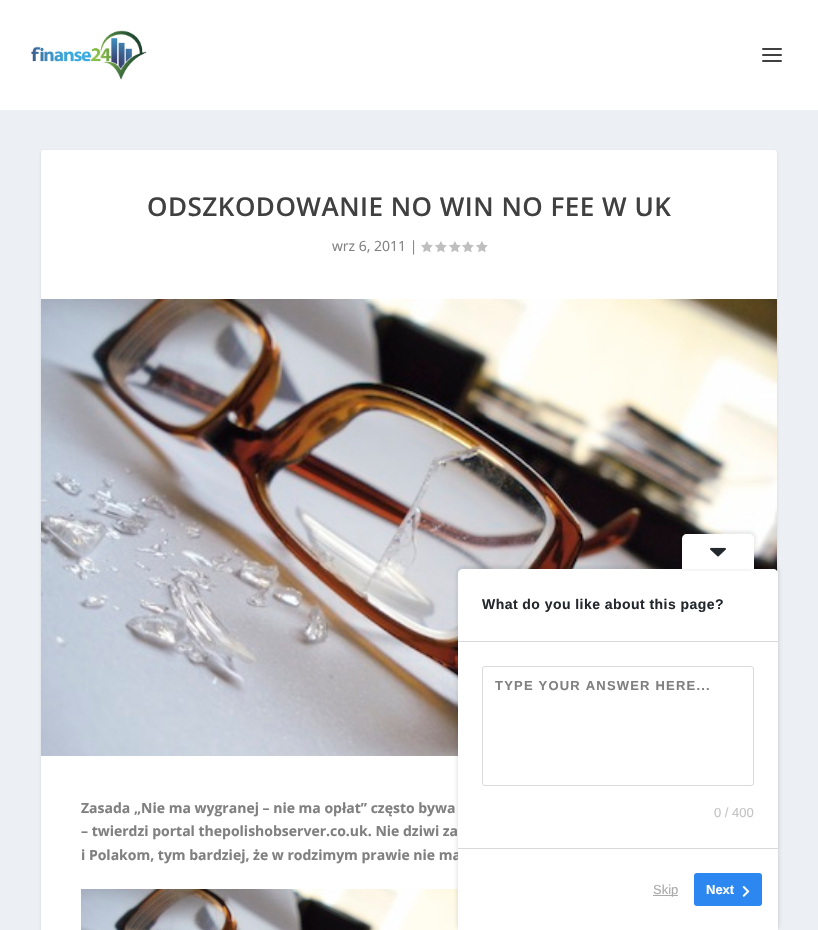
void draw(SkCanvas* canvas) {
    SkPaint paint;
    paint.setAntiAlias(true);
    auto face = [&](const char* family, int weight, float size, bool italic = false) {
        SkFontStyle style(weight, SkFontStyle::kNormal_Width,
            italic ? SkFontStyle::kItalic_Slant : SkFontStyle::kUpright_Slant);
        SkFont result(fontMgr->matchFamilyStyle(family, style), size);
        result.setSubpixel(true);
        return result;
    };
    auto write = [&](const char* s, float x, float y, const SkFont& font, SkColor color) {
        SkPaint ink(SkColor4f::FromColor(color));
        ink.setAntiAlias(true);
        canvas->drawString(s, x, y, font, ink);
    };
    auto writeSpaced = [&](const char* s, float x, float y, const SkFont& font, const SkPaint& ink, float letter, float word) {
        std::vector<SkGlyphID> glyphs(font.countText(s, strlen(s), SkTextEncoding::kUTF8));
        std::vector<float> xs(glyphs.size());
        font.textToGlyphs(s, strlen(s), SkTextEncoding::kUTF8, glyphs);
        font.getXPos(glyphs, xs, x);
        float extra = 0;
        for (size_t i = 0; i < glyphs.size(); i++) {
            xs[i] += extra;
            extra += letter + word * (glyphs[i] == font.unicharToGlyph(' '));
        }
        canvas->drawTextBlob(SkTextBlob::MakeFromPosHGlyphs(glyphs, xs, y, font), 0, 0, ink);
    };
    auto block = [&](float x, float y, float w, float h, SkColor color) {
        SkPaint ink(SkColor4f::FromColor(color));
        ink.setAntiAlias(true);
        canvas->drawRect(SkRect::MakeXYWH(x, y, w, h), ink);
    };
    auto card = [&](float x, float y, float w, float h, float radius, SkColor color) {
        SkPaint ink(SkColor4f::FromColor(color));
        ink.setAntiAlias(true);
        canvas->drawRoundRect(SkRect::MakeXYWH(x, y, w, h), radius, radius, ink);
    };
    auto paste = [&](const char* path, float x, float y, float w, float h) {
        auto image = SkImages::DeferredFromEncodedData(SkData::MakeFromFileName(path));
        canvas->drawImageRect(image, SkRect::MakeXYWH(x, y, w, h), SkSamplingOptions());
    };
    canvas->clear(SkColorSetRGB(236, 240, 245));
    block(0, 0, 818, 110, SK_ColorWHITE);
    paste("pic1.png", 31, 30, 116, 50);
    card(762, 48, 20, 2, 1, SkColorSetRGB(64, 64, 64));
    card(762, 54, 20, 2, 1, SkColorSetRGB(64, 64, 64));
    card(762, 60, 20, 2, 1, SkColorSetRGB(64, 64, 64));
    paint.setColor(SkColorSetARGB(26, 0, 0, 0));
    paint.setMaskFilter(SkMaskFilter::MakeBlur(kNormal_SkBlurStyle, 1.5f));
    canvas->drawRoundRect(SkRect::MakeXYWH(41, 151, 736, 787), 3, 3, paint);
    paint.setMaskFilter(nullptr);
    card(41, 150, 736, 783, 3, SK_ColorWHITE);
    auto kFont1 = face("Open Sans", 600, 26);
    paint.setColor(SkColorSetRGB(64, 64, 64));
    writeSpaced("ODSZKODOWANIE NO WIN NO FEE W UK", 147, 216, kFont1, paint, 0.5f, 0);
    auto kFont2 = face("Open Sans", 400, 14);
    write("wrz 6, 2011 |", 332, 251, kFont2, SkColorSetRGB(128, 128, 128));
    paste("pic2.png", 421, 241, 12, 12);
    paste("pic2.png", 435, 241, 12, 12);
    paste("pic2.png", 449, 241, 12, 12);
    paste("pic2.png", 462, 241, 12, 12);
    paste("pic2.png", 476, 241, 12, 12);
    paste("pic3.png", 41, 299, 736, 457);
    auto kFont3 = face("Open Sans", 700, 14);
    write("Zasada „Nie ma wygranej – nie ma opłat” często bywa", 81, 813, kFont3, SkColorSetRGB(128, 128, 128));
    write("– twierdzi portal thepolishobserver.co.uk. Nie dziwi za", 81, 836, kFont3, SkColorSetRGB(128, 128, 128));
    write("i Polakom, tym bardziej, że w rodzimym prawie nie ma", 81, 860, kFont3, SkColorSetRGB(128, 128, 128));
    paste("pic4.png", 81, 889, 377, 41);
    paint.setColor(SkColorSetARGB(18, 0, 0, 0));
    paint.setMaskFilter(SkMaskFilter::MakeBlur(kNormal_SkBlurStyle, 1.5f));
    canvas->drawRoundRect(SkRect::MakeXYWH(456, 566, 324, 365), 7, 7, paint);
    paint.setMaskFilter(nullptr);
    paint.setColor(SK_ColorWHITE);
    canvas->drawPath(SkPathBuilder().moveTo(463, 569).lineTo(773, 569).cubicTo(776, 569, 778, 571, 778, 574).lineTo(778, 930).lineTo(458, 930).lineTo(458, 574).cubicTo(458, 571, 460, 569, 463, 569).close().detach(), paint);
    paint.setColor(SkColorSetARGB(18, 0, 0, 0));
    paint.setMaskFilter(SkMaskFilter::MakeBlur(kNormal_SkBlurStyle, 1.5f));
    canvas->drawRoundRect(SkRect::MakeXYWH(680, 531, 76, 39), 7, 7, paint);
    paint.setMaskFilter(nullptr);
    paint.setColor(SK_ColorWHITE);
    canvas->drawPath(SkPathBuilder().moveTo(687, 534).lineTo(749, 534).cubicTo(752, 534, 754, 536, 754, 539).lineTo(754, 569).lineTo(682, 569).lineTo(682, 539).cubicTo(682, 536, 684, 534, 687, 534).close().detach(), paint);
    paste("pic5.png", 710, 547, 16, 10);
    auto kFont4 = face("Liberation Sans", 700, 14);
    paint.setColor(SkColorSetRGB(35, 40, 45));
    writeSpaced("What do you like about this page?", 482, 609, kFont4, paint, 0.45f, 0);
    block(458, 641, 320, 1, SkColorSetRGB(217, 217, 217));
    block(458, 848, 320, 1, SkColorSetRGB(217, 217, 217));
    paint.setStyle(SkPaint::kStroke_Style);
    paint.setStrokeWidth(1);
    paint.setColor(SkColorSetRGB(218, 218, 218));
    canvas->drawRoundRect(SkRect::MakeXYWH(482.5f, 666.5f, 271, 119), 2.5f, 2.5f, paint);
    auto kFont5 = face("Liberation Sans", 700, 13);
    paint.setStyle(SkPaint::kFill_Style);
    paint.setColor(SkColorSetRGB(128, 128, 128));
    writeSpaced("TYPE YOUR ANSWER HERE...", 495, 690, kFont5, paint, 1.2f, 0);
    auto kFont6 = face("Liberation Sans", 400, 13);
    write("0 / 400", 714, 817, kFont6, SkColorSetRGB(196, 196, 196));
    block(653, 895, 25, 1, SkColorSetRGB(170, 170, 170));
    write("Skip", 653, 894, kFont6, SkColorSetRGB(170, 170, 170));
    card(694, 873, 68, 33, 3, SkColorSetRGB(45, 135, 241));
    write("Next", 706, 894, kFont5, SK_ColorWHITE);
    paste("pic6.png", 742, 886, 8, 11);
}
